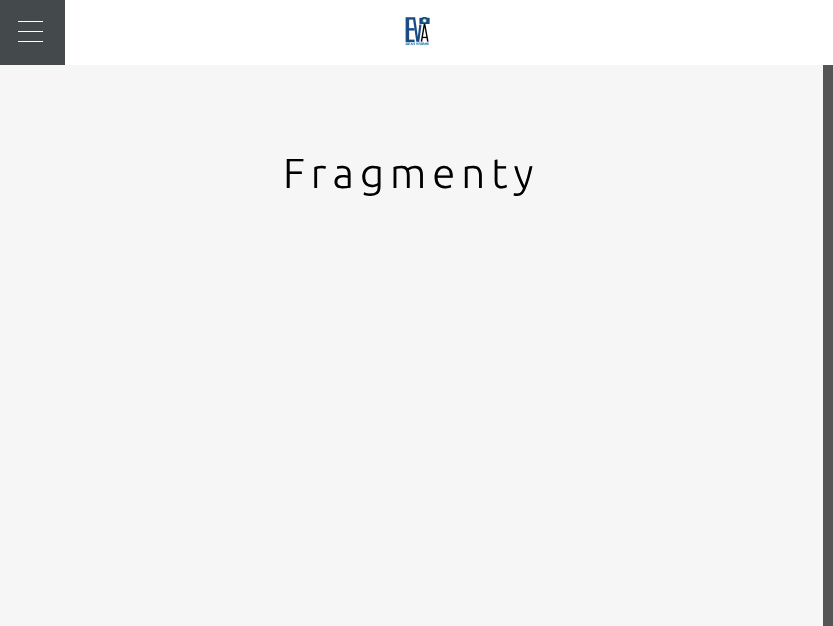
void draw(SkCanvas* canvas) {
    SkPaint paint;
    paint.setAntiAlias(true);
    auto face = [&](const char* family, int weight, float size, bool italic = false) {
        SkFontStyle style(weight, SkFontStyle::kNormal_Width,
            italic ? SkFontStyle::kItalic_Slant : SkFontStyle::kUpright_Slant);
        SkFont result(fontMgr->matchFamilyStyle(family, style), size);
        result.setSubpixel(true);
        return result;
    };
    auto writeSpaced = [&](const char* s, float x, float y, const SkFont& font, const SkPaint& ink, float letter, float word) {
        std::vector<SkGlyphID> glyphs(font.countText(s, strlen(s), SkTextEncoding::kUTF8));
        std::vector<float> xs(glyphs.size());
        font.textToGlyphs(s, strlen(s), SkTextEncoding::kUTF8, glyphs);
        font.getXPos(glyphs, xs, x);
        float extra = 0;
        for (size_t i = 0; i < glyphs.size(); i++) {
            xs[i] += extra;
            extra += letter + word * (glyphs[i] == font.unicharToGlyph(' '));
        }
        canvas->drawTextBlob(SkTextBlob::MakeFromPosHGlyphs(glyphs, xs, y, font), 0, 0, ink);
    };
    auto block = [&](float x, float y, float w, float h, SkColor color) {
        SkPaint ink(SkColor4f::FromColor(color));
        ink.setAntiAlias(true);
        canvas->drawRect(SkRect::MakeXYWH(x, y, w, h), ink);
    };
    auto paste = [&](const char* path, float x, float y, float w, float h) {
        auto image = SkImages::DeferredFromEncodedData(SkData::MakeFromFileName(path));
        canvas->drawImageRect(image, SkRect::MakeXYWH(x, y, w, h), SkSamplingOptions());
    };
    canvas->clear(SkColorSetRGB(85, 85, 85));
    block(0, 0, 65, 65, SkColorSetRGB(68, 73, 75));
    block(18, 31, 25, 1, SK_ColorWHITE);
    block(18, 21, 25, 1, SK_ColorWHITE);
    block(18, 41, 25, 1, SK_ColorWHITE);
    block(65, 0, 768, 65, SK_ColorWHITE);
    paste("pic1.png", 405, 17, 25, 29);
    block(0, 65, 823, 561, SkColorSetRGB(246, 246, 246));
    auto kFont1 = face("Ubuntu", 300, 42);
    paint.setColor(SK_ColorBLACK);
    writeSpaced("Fragmenty", 283, 188, kFont1, paint, 6, 0);
}
